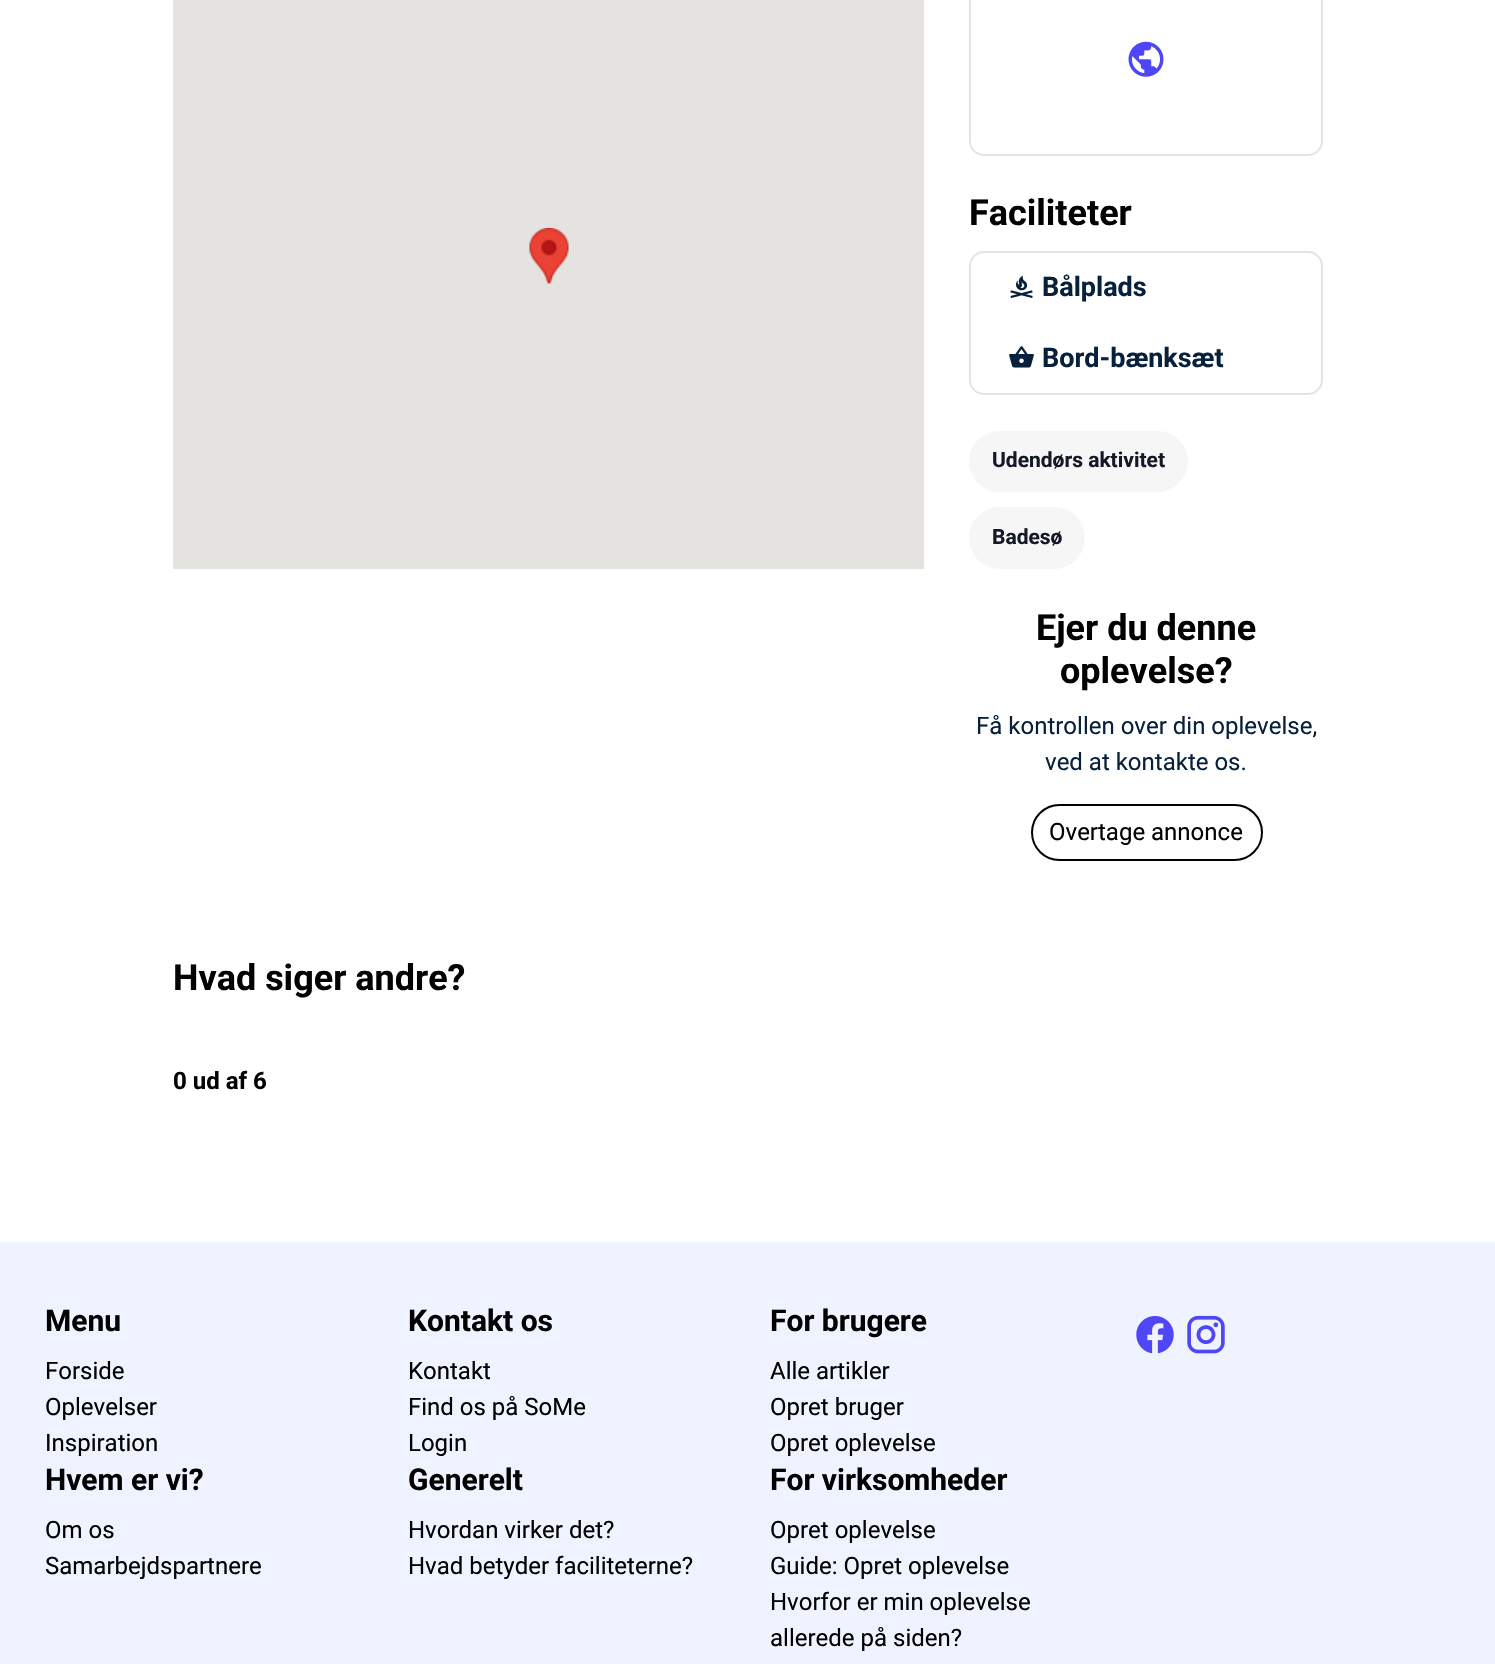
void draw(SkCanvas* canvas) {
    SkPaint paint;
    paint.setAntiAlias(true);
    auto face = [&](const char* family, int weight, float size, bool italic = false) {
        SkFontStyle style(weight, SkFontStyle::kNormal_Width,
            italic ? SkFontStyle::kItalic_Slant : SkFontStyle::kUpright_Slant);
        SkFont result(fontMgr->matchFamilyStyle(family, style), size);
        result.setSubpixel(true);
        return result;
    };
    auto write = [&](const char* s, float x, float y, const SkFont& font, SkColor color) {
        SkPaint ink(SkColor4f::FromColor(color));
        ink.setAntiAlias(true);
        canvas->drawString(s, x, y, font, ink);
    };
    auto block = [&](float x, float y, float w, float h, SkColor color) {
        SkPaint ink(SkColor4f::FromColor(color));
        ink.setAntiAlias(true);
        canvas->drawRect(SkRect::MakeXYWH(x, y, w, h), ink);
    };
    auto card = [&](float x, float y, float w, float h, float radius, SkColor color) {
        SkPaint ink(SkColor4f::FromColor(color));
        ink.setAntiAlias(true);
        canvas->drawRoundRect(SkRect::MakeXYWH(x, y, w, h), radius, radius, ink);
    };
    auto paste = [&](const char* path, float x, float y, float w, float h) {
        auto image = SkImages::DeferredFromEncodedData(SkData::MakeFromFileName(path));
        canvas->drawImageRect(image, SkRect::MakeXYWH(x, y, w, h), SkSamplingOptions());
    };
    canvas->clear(SK_ColorWHITE);
    block(173, 0, 751, 569, SkColorSetRGB(229, 227, 223));
    paste("pic1.png", 529, 228, 40, 56);
    paint.setStyle(SkPaint::kStroke_Style);
    paint.setStrokeWidth(2);
    paint.setColor(SkColorSetRGB(228, 228, 228));
    canvas->drawRoundRect(SkRect::MakeXYWH(970, -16, 352, 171), 14, 14, paint);
    paste("pic2.png", 1128, 41, 36, 36);
    auto kFont1 = face("Roboto", 700, 36);
    write("Faciliteter", 969, 225, kFont1, SkColorSetRGB(2, 2, 2));
    canvas->drawRoundRect(SkRect::MakeXYWH(970, 252, 352, 142), 14, 14, paint);
    paste("pic3.png", 1010, 275, 23, 24);
    auto kFont2 = face("Roboto", 700, 27);
    write("Bålplads", 1042, 296, kFont2, SkColorSetRGB(7, 32, 59));
    paste("pic4.png", 1009, 346, 25, 22);
    write("Bord-bænksæt", 1042, 367, kFont2, SkColorSetRGB(7, 32, 59));
    card(969, 431, 219, 61, 30.5f, SkColorSetRGB(247, 246, 246));
    auto kFont3 = face("Roboto", 700, 21);
    write("Udendørs aktivitet", 992, 467, kFont3, SkColorSetRGB(20, 24, 39));
    card(969, 507, 116, 62, 31, SkColorSetRGB(247, 246, 246));
    write("Badesø", 992, 544, kFont3, SkColorSetRGB(20, 24, 39));
    write("Ejer du denne", 1036, 640, kFont1, SkColorSetRGB(2, 2, 2));
    write("oplevelse?", 1060, 683, kFont1, SkColorSetRGB(2, 2, 2));
    auto kFont4 = face("Roboto", 400, 24);
    write("Få kontrollen over din oplevelse,", 976, 734, kFont4, SkColorSetRGB(7, 32, 59));
    write("ved at kontakte os.", 1045, 770, kFont4, SkColorSetRGB(7, 32, 59));
    paint.setColor(SK_ColorBLACK);
    canvas->drawRoundRect(SkRect::MakeXYWH(1032, 805, 230, 55), 27.5f, 27.5f, paint);
    write("Overtage annonce", 1049, 840, kFont4, SkColorSetRGB(2, 2, 2));
    write("Hvad siger andre?", 173, 990, kFont1, SkColorSetRGB(2, 2, 2));
    auto kFont5 = face("Roboto", 700, 24);
    write("0 ud af 6", 173, 1089, kFont5, SkColorSetRGB(2, 2, 2));
    block(0, 1242, 1495, 422, SkColorSetRGB(238, 243, 255));
    auto kFont6 = face("Roboto", 700, 30);
    write("Menu", 45, 1331, kFont6, SkColorSetRGB(2, 2, 2));
    write("Forside", 45, 1379, kFont4, SkColorSetRGB(2, 2, 2));
    write("Oplevelser", 45, 1415, kFont4, SkColorSetRGB(2, 2, 2));
    write("Inspiration", 45, 1451, kFont4, SkColorSetRGB(2, 2, 2));
    write("Hvem er vi?", 45, 1490, kFont6, SkColorSetRGB(2, 2, 2));
    write("Om os", 45, 1538, kFont4, SkColorSetRGB(2, 2, 2));
    write("Samarbejdspartnere", 45, 1574, kFont4, SkColorSetRGB(2, 2, 2));
    write("Kontakt os", 408, 1331, kFont6, SkColorSetRGB(2, 2, 2));
    write("Kontakt", 408, 1379, kFont4, SkColorSetRGB(2, 2, 2));
    write("Find os på SoMe", 408, 1415, kFont4, SkColorSetRGB(2, 2, 2));
    write("Login", 408, 1451, kFont4, SkColorSetRGB(2, 2, 2));
    write("Generelt", 408, 1490, kFont6, SkColorSetRGB(2, 2, 2));
    write("Hvordan virker det?", 408, 1538, kFont4, SkColorSetRGB(2, 2, 2));
    write("Hvad betyder faciliteterne?", 408, 1574, kFont4, SkColorSetRGB(2, 2, 2));
    write("For brugere", 770, 1331, kFont6, SkColorSetRGB(2, 2, 2));
    write("Alle artikler", 770, 1379, kFont4, SkColorSetRGB(2, 2, 2));
    write("Opret bruger", 770, 1415, kFont4, SkColorSetRGB(2, 2, 2));
    write("Opret oplevelse", 770, 1451, kFont4, SkColorSetRGB(2, 2, 2));
    write("For virksomheder", 770, 1490, kFont6, SkColorSetRGB(2, 2, 2));
    write("Opret oplevelse", 770, 1538, kFont4, SkColorSetRGB(2, 2, 2));
    write("Guide: Opret oplevelse", 770, 1574, kFont4, SkColorSetRGB(2, 2, 2));
    write("Hvorfor er min oplevelse", 770, 1610, kFont4, SkColorSetRGB(2, 2, 2));
    write("allerede på siden?", 770, 1646, kFont4, SkColorSetRGB(2, 2, 2));
    paste("pic5.png", 1136, 1316, 38, 38);
    paste("pic6.png", 1187, 1315, 38, 39);
}
